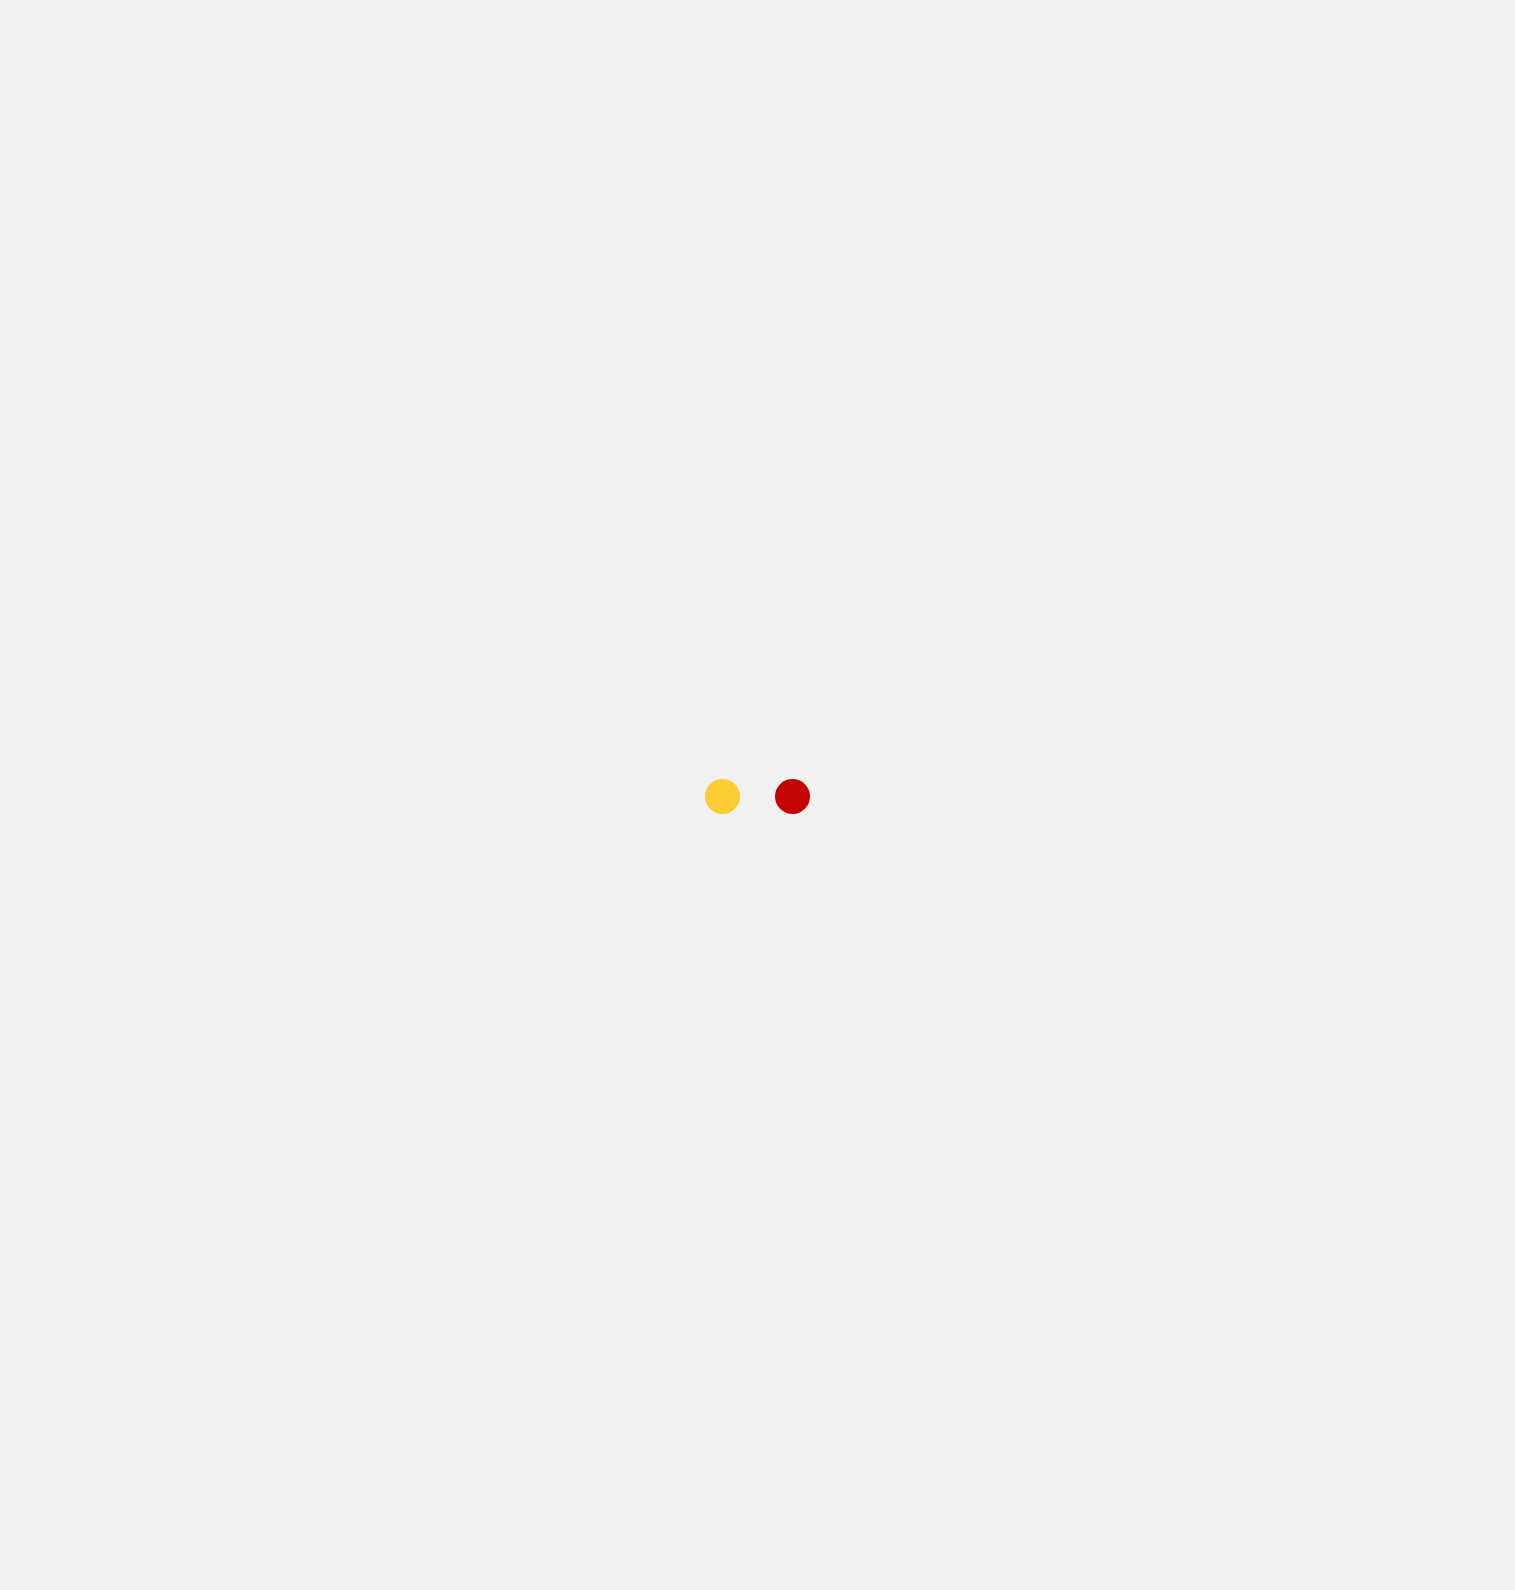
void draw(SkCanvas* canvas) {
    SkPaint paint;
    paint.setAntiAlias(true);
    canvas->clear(SK_ColorWHITE);
    paint.setColor(SkColorSetRGB(241, 241, 241));
    canvas->drawPath(SkPathBuilder().moveTo(0, 0).lineTo(1515, -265).lineTo(1515, 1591).lineTo(0, 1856).lineTo(0, 0).detach(), paint);
    paint.setColor(SkColorSetRGB(253, 204, 50));
    canvas->drawCircle(722.5f, 796.5f, 17.5f, paint);
    paint.setColor(SkColorSetRGB(197, 5, 5));
    canvas->drawCircle(792.5f, 796.5f, 17.5f, paint);
}
